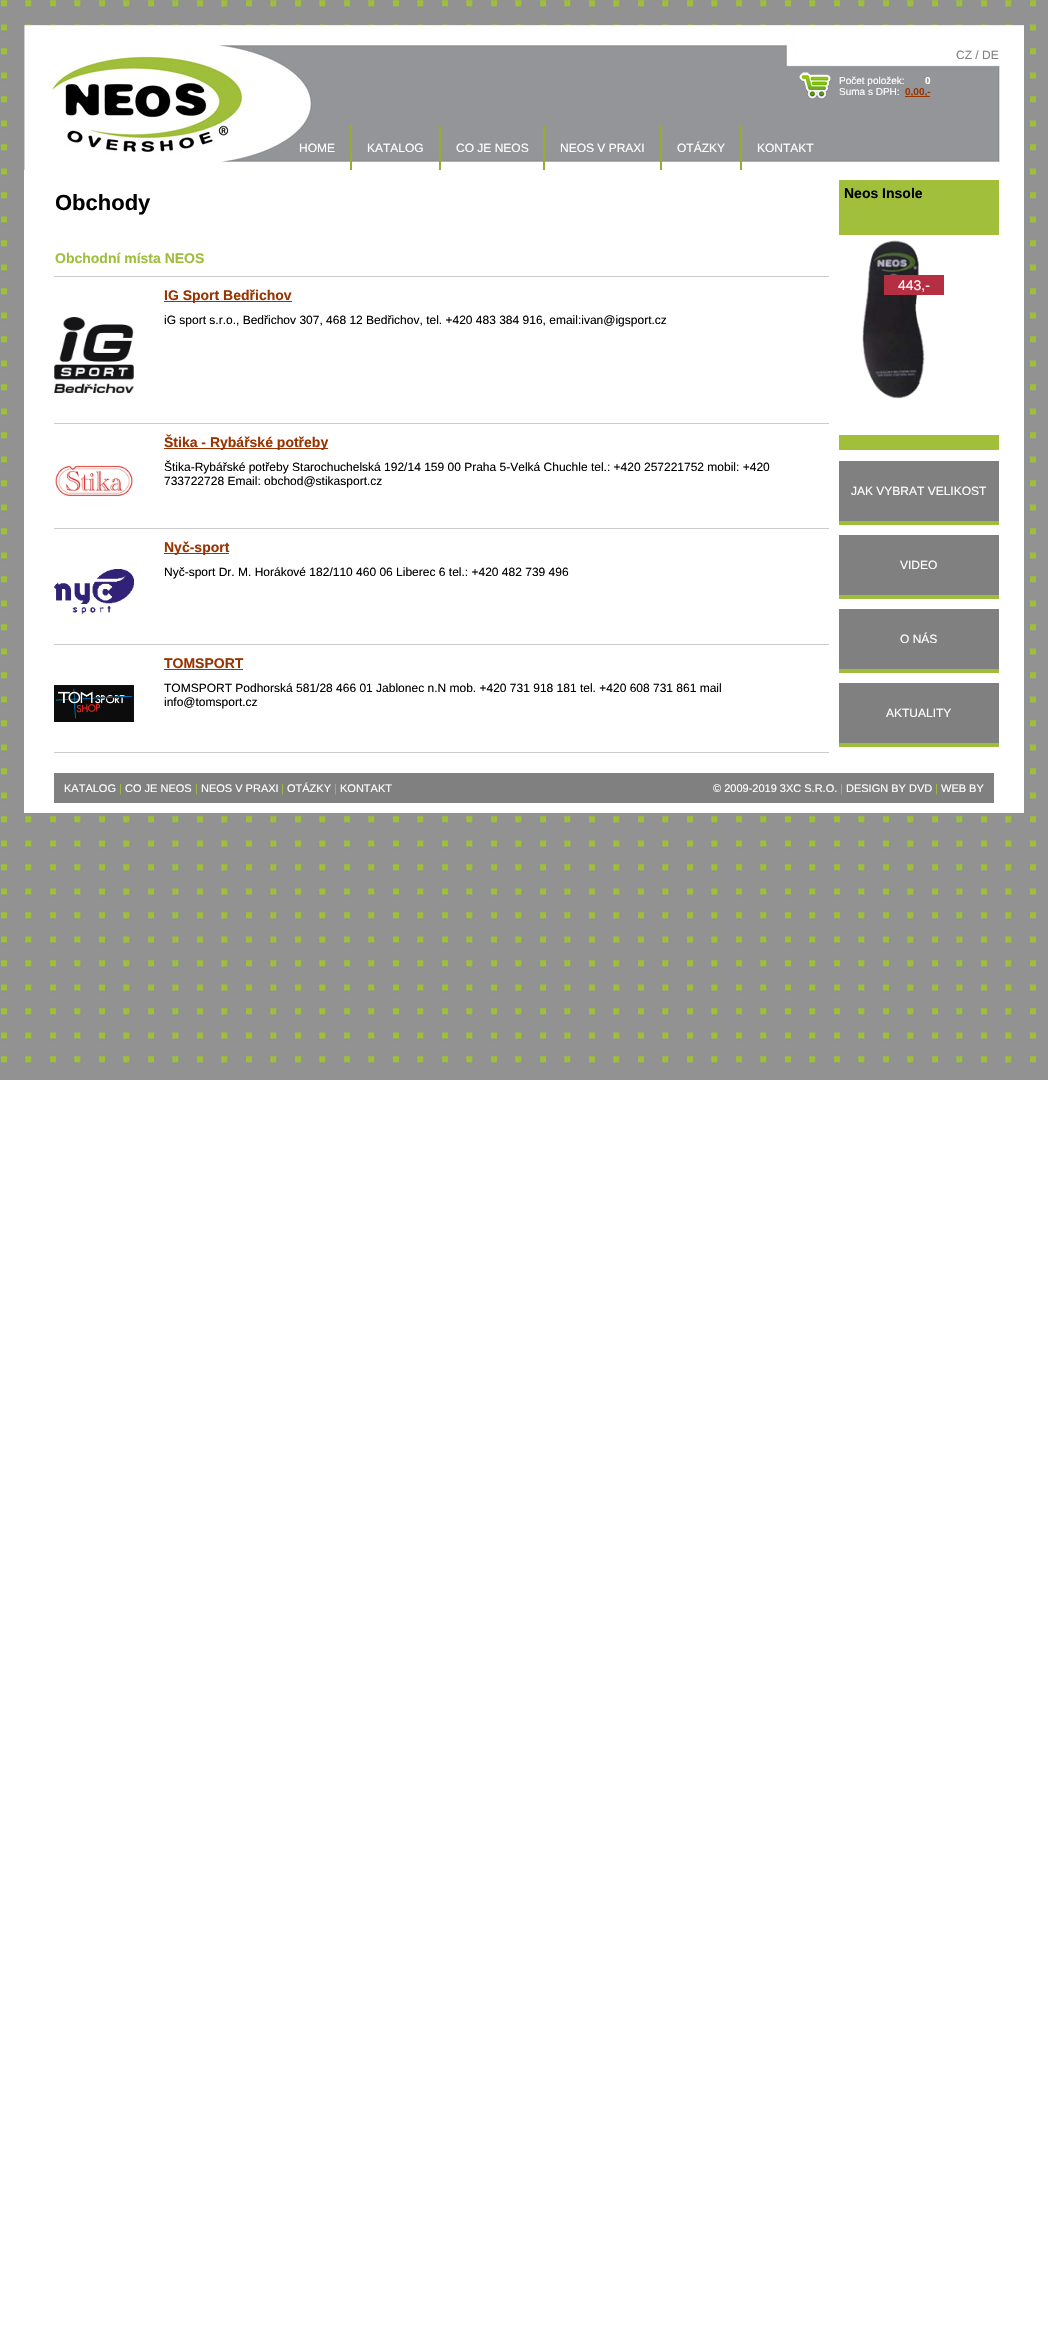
void draw(SkCanvas* canvas) {
    SkPaint paint;
    paint.setAntiAlias(true);
    auto face = [&](const char* family, int weight, float size, bool italic = false) {
        SkFontStyle style(weight, SkFontStyle::kNormal_Width,
            italic ? SkFontStyle::kItalic_Slant : SkFontStyle::kUpright_Slant);
        SkFont result(fontMgr->matchFamilyStyle(family, style), size);
        result.setSubpixel(true);
        return result;
    };
    auto write = [&](const char* s, float x, float y, const SkFont& font, SkColor color) {
        SkPaint ink(SkColor4f::FromColor(color));
        ink.setAntiAlias(true);
        canvas->drawString(s, x, y, font, ink);
    };
    auto block = [&](float x, float y, float w, float h, SkColor color) {
        SkPaint ink(SkColor4f::FromColor(color));
        ink.setAntiAlias(true);
        canvas->drawRect(SkRect::MakeXYWH(x, y, w, h), ink);
    };
    auto paste = [&](const char* path, float x, float y, float w, float h) {
        auto image = SkImages::DeferredFromEncodedData(SkData::MakeFromFileName(path));
        canvas->drawImageRect(image, SkRect::MakeXYWH(x, y, w, h), SkSamplingOptions());
    };
    canvas->clear(SK_ColorWHITE);
    paste("pic1.png", 0, 0, 1048, 1080);
    block(24, 170, 1000, 643, SK_ColorWHITE);
    paste("pic2.png", 24, 25, 1000, 145);
    auto kFont1 = face("Liberation Sans", 400, 12);
    write("CZ / DE", 956, 59, kFont1, SkColorSetRGB(130, 130, 130));
    paste("pic3.png", 799, 72, 32, 28);
    auto kFont2 = face("Liberation Sans", 400, 10);
    write("Počet položek:", 839, 84, kFont2, SK_ColorWHITE);
    auto kFont3 = face("Liberation Sans", 700, 10);
    write("0", 925, 84, kFont3, SK_ColorWHITE);
    write("Suma s DPH:", 839, 95, kFont2, SK_ColorWHITE);
    block(905, 96, 25, 1, SkColorSetRGB(153, 51, 0));
    write("0,00,-", 905, 95, kFont3, SkColorSetRGB(153, 51, 0));
    write("HOME", 299, 152, kFont1, SK_ColorWHITE);
    block(350, 125, 2, 45, SkColorSetRGB(152, 173, 46));
    write("KATALOG", 367, 152, kFont1, SK_ColorWHITE);
    block(439, 125, 2, 45, SkColorSetRGB(152, 173, 46));
    write("CO JE NEOS", 456, 152, kFont1, SK_ColorWHITE);
    block(543, 125, 2, 45, SkColorSetRGB(152, 173, 46));
    write("NEOS V PRAXI", 560, 152, kFont1, SK_ColorWHITE);
    block(660, 125, 2, 45, SkColorSetRGB(152, 173, 46));
    write("OTÁZKY", 677, 152, kFont1, SK_ColorWHITE);
    block(740, 125, 2, 45, SkColorSetRGB(152, 173, 46));
    write("KONTAKT", 757, 152, kFont1, SK_ColorWHITE);
    auto kFont4 = face("Liberation Sans", 700, 22);
    write("Obchody", 55, 210, kFont4, SK_ColorBLACK);
    auto kFont5 = face("Liberation Sans", 700, 14);
    write("Obchodní místa NEOS", 55, 263, kFont5, SkColorSetRGB(158, 190, 59));
    block(54, 276, 775, 1, SkColorSetRGB(204, 204, 204));
    block(164, 301, 128, 1, SkColorSetRGB(153, 51, 0));
    write("IG Sport Bedřichov", 164, 300, kFont5, SkColorSetRGB(153, 51, 0));
    paste("pic4.png", 54, 317, 80, 76);
    write("iG sport s.r.o., Bedřichov 307, 468 12 Bedřichov, tel. +420 483 384 916, email:ivan@igsport.cz", 164, 324, kFont1, SK_ColorBLACK);
    block(54, 423, 775, 1, SkColorSetRGB(204, 204, 204));
    block(164, 448, 164, 1, SkColorSetRGB(153, 51, 0));
    write("Štika - Rybářské potřeby", 164, 447, kFont5, SkColorSetRGB(153, 51, 0));
    paste("pic5.png", 55, 465, 78, 32);
    write("Štika-Rybářské potřeby Starochuchelská 192/14 159 00 Praha 5-Velká Chuchle tel.: +420 257221752 mobil: +420", 164, 471, kFont1, SK_ColorBLACK);
    write("733722728 Email: obchod@stikasport.cz", 164, 485, kFont1, SK_ColorBLACK);
    block(54, 528, 775, 1, SkColorSetRGB(204, 204, 204));
    block(164, 553, 65, 1, SkColorSetRGB(153, 51, 0));
    write("Nyč-sport", 164, 552, kFont5, SkColorSetRGB(153, 51, 0));
    paste("pic6.png", 54, 569, 80, 45);
    write("Nyč-sport Dr. M. Horákové 182/110 460 06 Liberec 6 tel.: +420 482 739 496", 164, 576, kFont1, SK_ColorBLACK);
    block(54, 644, 775, 1, SkColorSetRGB(204, 204, 204));
    write("TOMSPORT", 164, 668, kFont5, SkColorSetRGB(153, 51, 0));
    block(164, 669, 79, 1, SkColorSetRGB(153, 51, 0));
    paste("pic7.png", 54, 685, 80, 37);
    write("TOMSPORT Podhorská 581/28 466 01 Jablonec n.N mob. +420 731 918 181 tel. +420 608 731 861 mail", 164, 692, kFont1, SK_ColorBLACK);
    write("info@tomsport.cz", 164, 706, kFont1, SK_ColorBLACK);
    block(54, 752, 775, 1, SkColorSetRGB(204, 204, 204));
    block(839, 180, 160, 55, SkColorSetRGB(161, 191, 59));
    write("Neos Insole", 844, 198, kFont5, SK_ColorBLACK);
    paste("pic8.png", 862, 240, 63, 159);
    block(884, 275, 60, 20, SkColorSetRGB(182, 46, 66));
    auto kFont6 = face("Liberation Sans", 400, 14);
    write("443,-", 898, 290, kFont6, SK_ColorWHITE);
    block(839, 435, 160, 15, SkColorSetRGB(161, 191, 59));
    block(839, 461, 160, 60, SkColorSetRGB(128, 128, 128));
    block(839, 521, 160, 4, SkColorSetRGB(158, 190, 59));
    write("JAK VYBRAT VELIKOST", 851, 495, kFont1, SK_ColorWHITE);
    block(839, 535, 160, 60, SkColorSetRGB(128, 128, 128));
    block(839, 595, 160, 4, SkColorSetRGB(158, 190, 59));
    write("VIDEO", 900, 569, kFont1, SK_ColorWHITE);
    block(839, 609, 160, 60, SkColorSetRGB(128, 128, 128));
    block(839, 669, 160, 4, SkColorSetRGB(158, 190, 59));
    write("O NÁS", 900, 643, kFont1, SK_ColorWHITE);
    block(839, 683, 160, 60, SkColorSetRGB(128, 128, 128));
    block(839, 743, 160, 4, SkColorSetRGB(158, 190, 59));
    write("AKTUALITY", 886, 717, kFont1, SK_ColorWHITE);
    block(54, 773, 940, 30, SkColorSetRGB(128, 128, 128));
    auto kFont7 = face("Liberation Sans", 400, 11);
    write("KATALOG", 64, 792, kFont7, SK_ColorWHITE);
    write("|", 119, 792, kFont7, SkColorSetRGB(158, 190, 59));
    write("CO JE NEOS", 125, 792, kFont7, SK_ColorWHITE);
    write("|", 195, 792, kFont7, SkColorSetRGB(158, 190, 59));
    write("NEOS V PRAXI", 201, 792, kFont7, SK_ColorWHITE);
    write("|", 281, 792, kFont7, SkColorSetRGB(158, 190, 59));
    write("OTÁZKY", 287, 792, kFont7, SK_ColorWHITE);
    write("|", 334, 792, kFont7, SkColorSetRGB(158, 190, 59));
    write("KONTAKT", 340, 792, kFont7, SK_ColorWHITE);
    write("© 2009-2019 3XC S.R.O.", 713, 792, kFont7, SK_ColorWHITE);
    write("|", 840, 792, kFont7, SkColorSetRGB(158, 190, 59));
    write("DESIGN BY DVD", 846, 792, kFont7, SK_ColorWHITE);
    write("|", 935, 792, kFont7, SkColorSetRGB(158, 190, 59));
    write("WEB BY", 941, 792, kFont7, SK_ColorWHITE);
}
